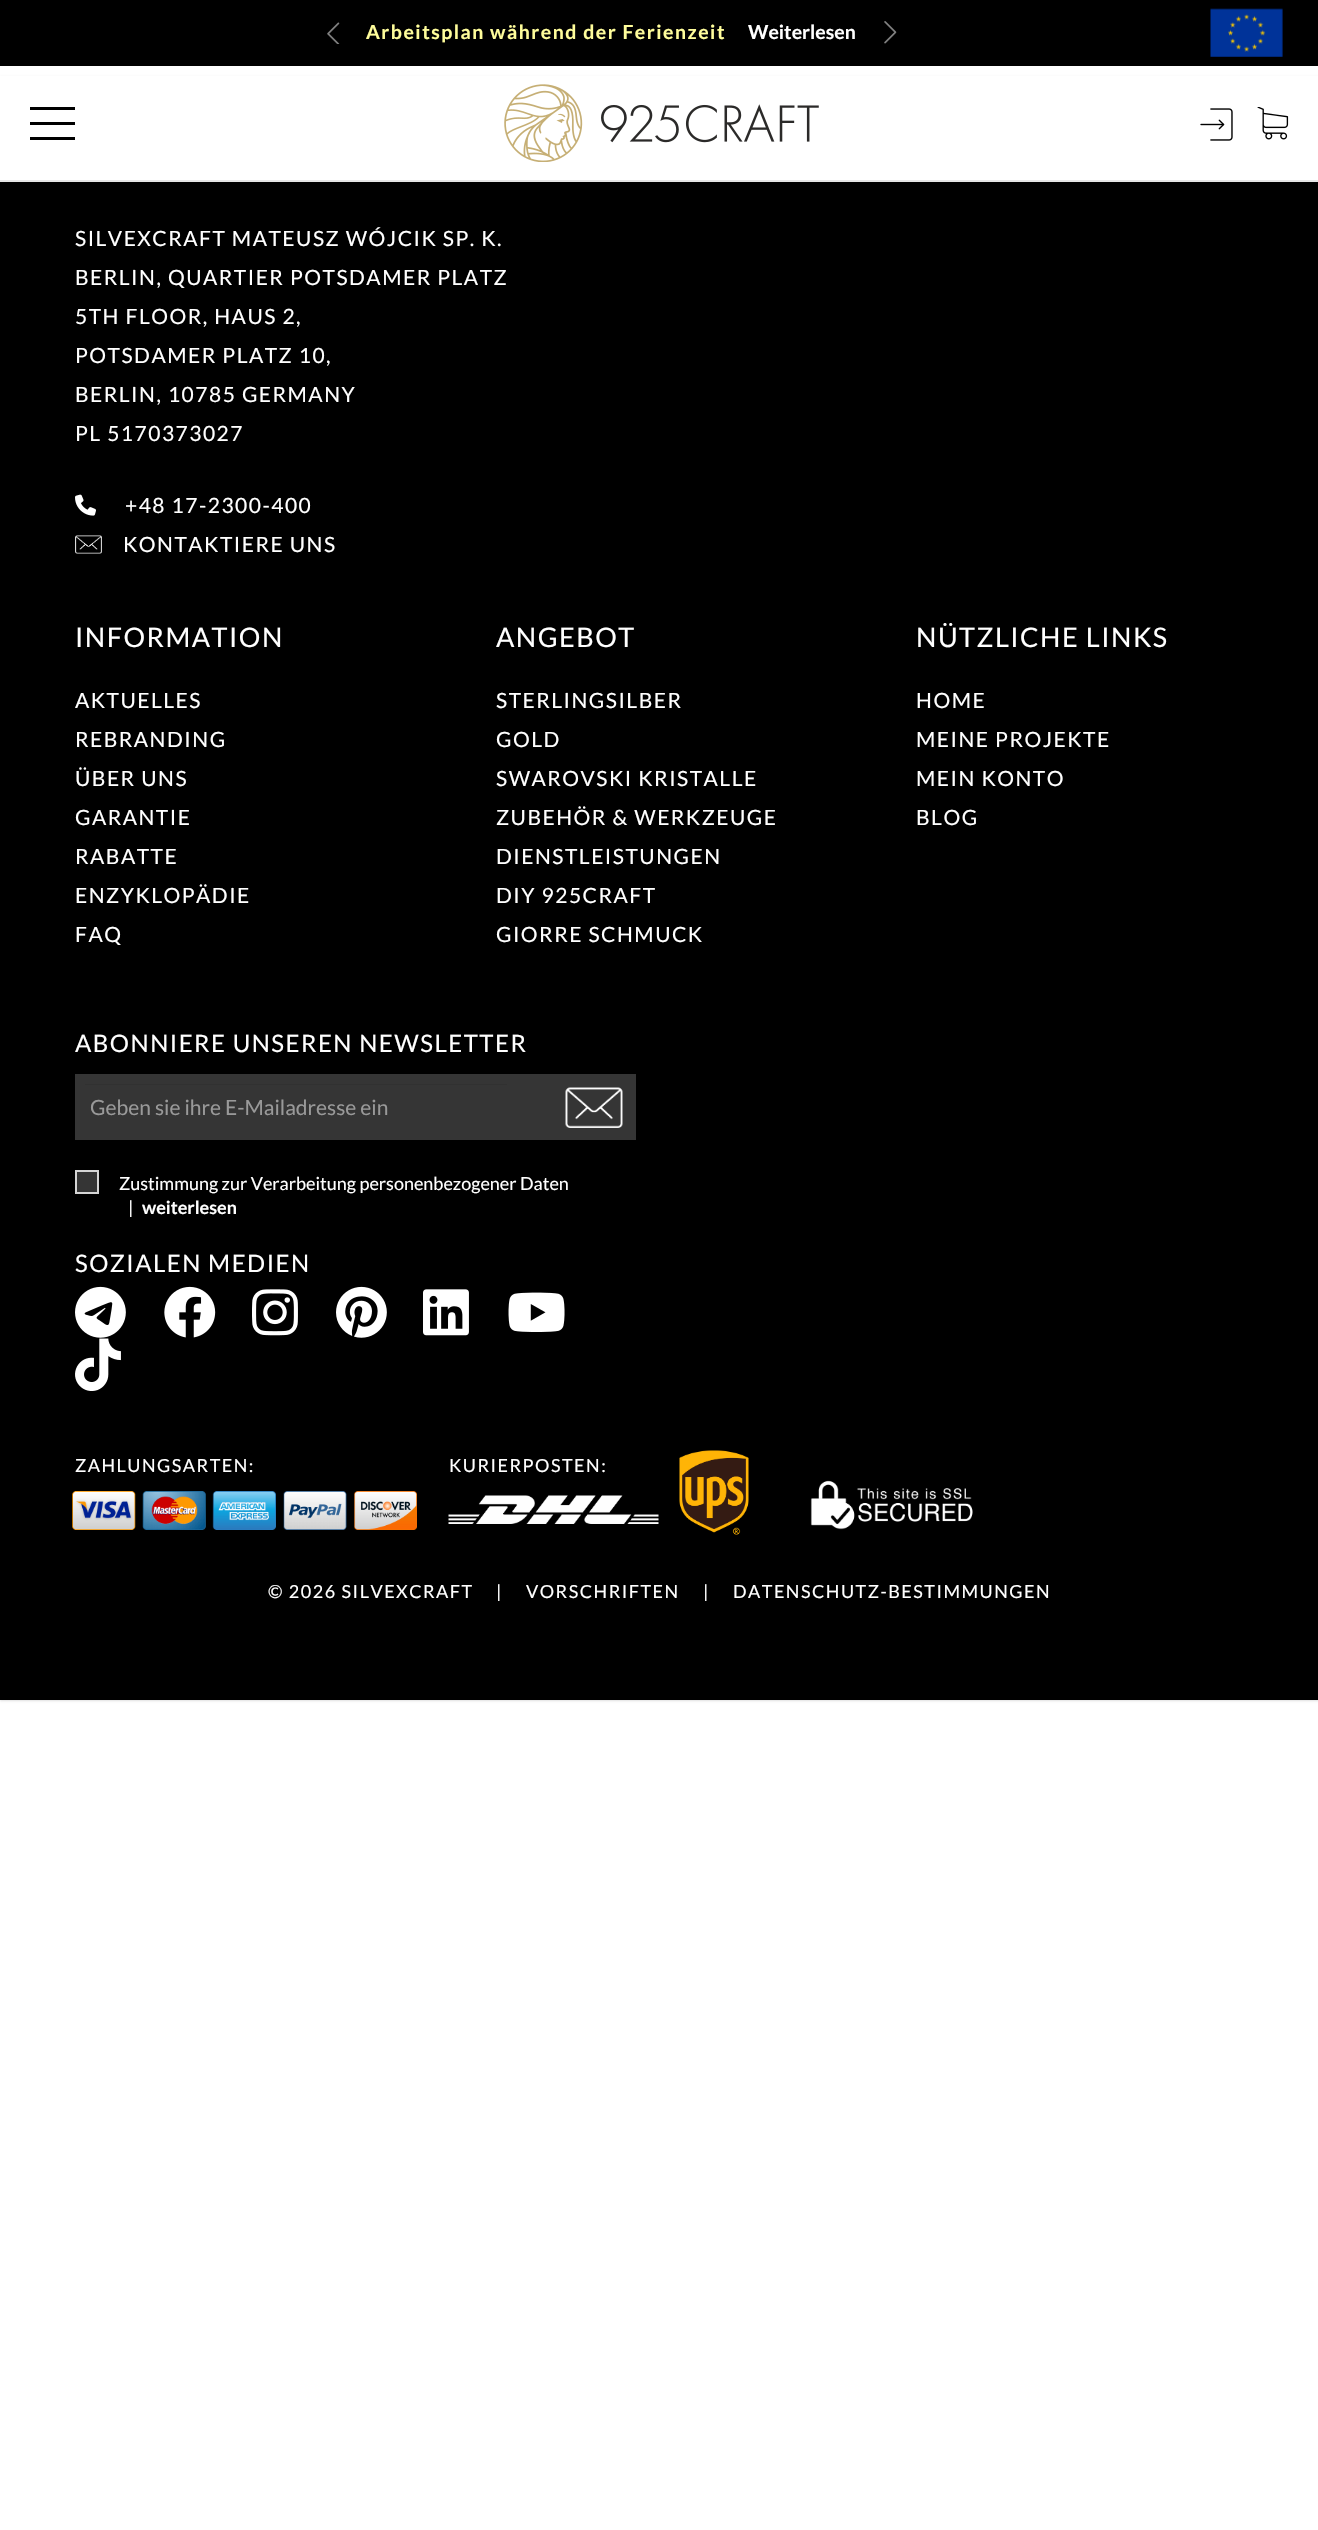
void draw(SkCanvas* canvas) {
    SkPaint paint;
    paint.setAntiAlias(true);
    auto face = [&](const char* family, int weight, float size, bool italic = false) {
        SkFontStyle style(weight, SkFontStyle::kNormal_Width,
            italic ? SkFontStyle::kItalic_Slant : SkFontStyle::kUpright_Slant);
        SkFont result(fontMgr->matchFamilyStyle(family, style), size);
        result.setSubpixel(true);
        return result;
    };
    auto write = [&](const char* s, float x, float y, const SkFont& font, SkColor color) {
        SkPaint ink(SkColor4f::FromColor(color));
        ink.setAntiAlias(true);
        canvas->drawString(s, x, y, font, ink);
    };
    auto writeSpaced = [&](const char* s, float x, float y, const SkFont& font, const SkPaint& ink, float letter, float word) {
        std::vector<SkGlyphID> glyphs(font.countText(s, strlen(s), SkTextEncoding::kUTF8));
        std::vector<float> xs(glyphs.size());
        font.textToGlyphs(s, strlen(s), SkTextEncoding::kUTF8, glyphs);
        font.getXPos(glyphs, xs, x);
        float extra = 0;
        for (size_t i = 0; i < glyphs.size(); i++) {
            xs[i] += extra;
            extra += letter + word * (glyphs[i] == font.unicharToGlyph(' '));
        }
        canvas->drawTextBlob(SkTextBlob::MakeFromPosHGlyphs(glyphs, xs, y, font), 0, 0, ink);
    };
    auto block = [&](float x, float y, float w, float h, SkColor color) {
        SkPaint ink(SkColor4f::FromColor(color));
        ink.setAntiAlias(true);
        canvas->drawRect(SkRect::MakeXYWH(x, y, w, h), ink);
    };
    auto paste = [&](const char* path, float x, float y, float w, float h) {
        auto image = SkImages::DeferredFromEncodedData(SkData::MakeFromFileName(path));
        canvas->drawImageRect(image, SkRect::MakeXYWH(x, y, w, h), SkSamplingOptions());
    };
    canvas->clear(SK_ColorWHITE);
    block(0, 0, 1318, 66, SK_ColorBLACK);
    paste("pic1.png", 327, 22, 13, 22);
    auto kFont1 = face("Lato", 700, 19.5f);
    paint.setColor(SkColorSetRGB(255, 253, 155));
    writeSpaced("Arbeitsplan während der Ferienzeit", 366, 39, kFont1, paint, 1.5f, 0);
    write("Weiterlesen", 748, 39, kFont1, SK_ColorWHITE);
    paste("pic2.png", 884, 21, 13, 23);
    paste("pic3.png", 1210, 8, 73, 49);
    paint.setColor(SkColorSetARGB(31, 0, 0, 0));
    paint.setMaskFilter(SkMaskFilter::MakeBlur(kNormal_SkBlurStyle, 1));
    canvas->drawRect(SkRect::MakeXYWH(0, 77, 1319, 1624), paint);
    paint.setMaskFilter(nullptr);
    block(0, 76, 1318, 104, SK_ColorWHITE);
    block(0, 180, 1318, 2, SkColorSetRGB(230, 230, 230));
    block(30, 107, 45, 3, SK_ColorBLACK);
    block(30, 122, 45, 3, SK_ColorBLACK);
    block(30, 137, 45, 3, SK_ColorBLACK);
    paste("pic4.png", 504, 84, 315, 78);
    paste("pic5.png", 1200, 108, 33, 33);
    paste("pic6.png", 1257, 107, 32, 33);
    block(0, 182, 1318, 1518, SK_ColorBLACK);
    auto kFont2 = face("Lato", 400, 21);
    paint.setColor(SK_ColorWHITE);
    writeSpaced("SILVEXCRAFT MATEUSZ WÓJCIK SP. K.", 75, 246, kFont2, paint, 1.5f, 0);
    writeSpaced("BERLIN, QUARTIER POTSDAMER PLATZ", 75, 285, kFont2, paint, 1.5f, 0);
    writeSpaced("5TH FLOOR, HAUS 2,", 75, 324, kFont2, paint, 1.5f, 0);
    writeSpaced("POTSDAMER PLATZ 10,", 75, 363, kFont2, paint, 1.5f, 0);
    writeSpaced("BERLIN, 10785 GERMANY", 75, 402, kFont2, paint, 1.5f, 0);
    writeSpaced("PL 5170373027", 75, 441, kFont2, paint, 1.5f, 0);
    paste("pic7.png", 75, 494, 21, 22);
    writeSpaced("+48 17-2300-400", 125, 513, kFont2, paint, 1.5f, 0);
    paste("pic8.png", 75, 535, 27, 19);
    writeSpaced("KONTAKTIERE UNS", 123, 552, kFont2, paint, 1.5f, 0);
    auto kFont3 = face("Lato", 400, 27);
    writeSpaced("INFORMATION", 75, 647, kFont3, paint, 1.5f, 0);
    writeSpaced("AKTUELLES", 75, 708, kFont2, paint, 1.5f, 0);
    writeSpaced("REBRANDING", 75, 747, kFont2, paint, 1.5f, 0);
    writeSpaced("ÜBER UNS", 75, 786, kFont2, paint, 1.5f, 0);
    writeSpaced("GARANTIE", 75, 825, kFont2, paint, 1.5f, 0);
    writeSpaced("RABATTE", 75, 864, kFont2, paint, 1.5f, 0);
    writeSpaced("ENZYKLOPÄDIE", 75, 903, kFont2, paint, 1.5f, 0);
    writeSpaced("FAQ", 75, 942, kFont2, paint, 1.5f, 0);
    writeSpaced("ANGEBOT", 496, 647, kFont3, paint, 1.5f, 0);
    writeSpaced("STERLINGSILBER", 496, 708, kFont2, paint, 1.5f, 0);
    writeSpaced("GOLD", 496, 747, kFont2, paint, 1.5f, 0);
    writeSpaced("SWAROVSKI KRISTALLE", 496, 786, kFont2, paint, 1.5f, 0);
    writeSpaced("ZUBEHÖR & WERKZEUGE", 496, 825, kFont2, paint, 1.5f, 0);
    writeSpaced("DIENSTLEISTUNGEN", 496, 864, kFont2, paint, 1.5f, 0);
    writeSpaced("DIY 925CRAFT", 496, 903, kFont2, paint, 1.5f, 0);
    writeSpaced("GIORRE SCHMUCK", 496, 942, kFont2, paint, 1.5f, 0);
    writeSpaced("NÜTZLICHE LINKS", 916, 647, kFont3, paint, 1.5f, 0);
    writeSpaced("HOME", 916, 708, kFont2, paint, 1.5f, 0);
    writeSpaced("MEINE PROJEKTE", 916, 747, kFont2, paint, 1.5f, 0);
    writeSpaced("MEIN KONTO", 916, 786, kFont2, paint, 1.5f, 0);
    writeSpaced("BLOG", 916, 825, kFont2, paint, 1.5f, 0);
    auto kFont4 = face("Lato", 400, 24);
    writeSpaced("ABONNIERE UNSEREN NEWSLETTER", 75, 1052, kFont4, paint, 1.5f, 0);
    block(75, 1074, 561, 66, SkColorSetRGB(53, 53, 53));
    block(84, 1084, 423, 1, SkColorSetRGB(49, 49, 49));
    paint.setStyle(SkPaint::kStroke_Style);
    paint.setStrokeWidth(2);
    paint.setColor(SkColorSetRGB(53, 53, 53));
    canvas->drawRect(SkRect::MakeXYWH(84, 1083, 424, 49), paint);
    write("Geben sie ihre E-Mailadresse ein", 90, 1115, kFont2, SkColorSetRGB(153, 153, 153));
    paste("pic9.png", 565, 1087, 58, 41);
    paint.setStyle(SkPaint::kFill_Style);
    canvas->drawRect(SkRect::MakeXYWH(76, 1171, 22, 22), paint);
    paint.setStyle(SkPaint::kStroke_Style);
    paint.setColor(SkColorSetRGB(213, 213, 213));
    canvas->drawRect(SkRect::MakeXYWH(76, 1171, 22, 22), paint);
    auto kFont5 = face("Lato", 400, 18);
    write("Zustimmung zur Verarbeitung personenbezogener Daten", 119, 1190, kFont5, SK_ColorWHITE);
    write("|", 128, 1214, kFont5, SK_ColorWHITE);
    auto kFont6 = face("Lato", 700, 18);
    write("weiterlesen", 142, 1214, kFont6, SK_ColorWHITE);
    paint.setStyle(SkPaint::kFill_Style);
    paint.setColor(SK_ColorWHITE);
    writeSpaced("SOZIALEN MEDIEN", 75, 1272, kFont4, paint, 1.5f, 0);
    paste("pic10.png", 75, 1286, 51, 52);
    paste("pic11.png", 164, 1286, 52, 52);
    paste("pic12.png", 252, 1289, 46, 47);
    paste("pic13.png", 336, 1286, 51, 52);
    paste("pic14.png", 423, 1289, 46, 47);
    paste("pic15.png", 508, 1292, 57, 40);
    paste("pic16.png", 75, 1338, 46, 53);
    writeSpaced("ZAHLUNGSARTEN:", 75, 1472, kFont5, paint, 1.5f, 0);
    paste("pic17.png", 72, 1491, 345, 39);
    writeSpaced("KURIERPOSTEN:", 449, 1472, kFont5, paint, 1.5f, 0);
    paste("pic18.png", 448, 1495, 211, 29);
    paste("pic19.png", 679, 1450, 70, 85);
    paste("pic20.png", 810, 1480, 163, 50);
    writeSpaced("© 2026 SILVEXCRAFT", 268, 1598, kFont5, paint, 1.5f, 0);
    writeSpaced("|", 496, 1598, kFont5, paint, 1.5f, 0);
    writeSpaced("VORSCHRIFTEN", 526, 1598, kFont5, paint, 1.5f, 0);
    writeSpaced("|", 703, 1598, kFont5, paint, 1.5f, 0);
    writeSpaced("DATENSCHUTZ-BESTIMMUNGEN", 733, 1598, kFont5, paint, 1.5f, 0);
}
